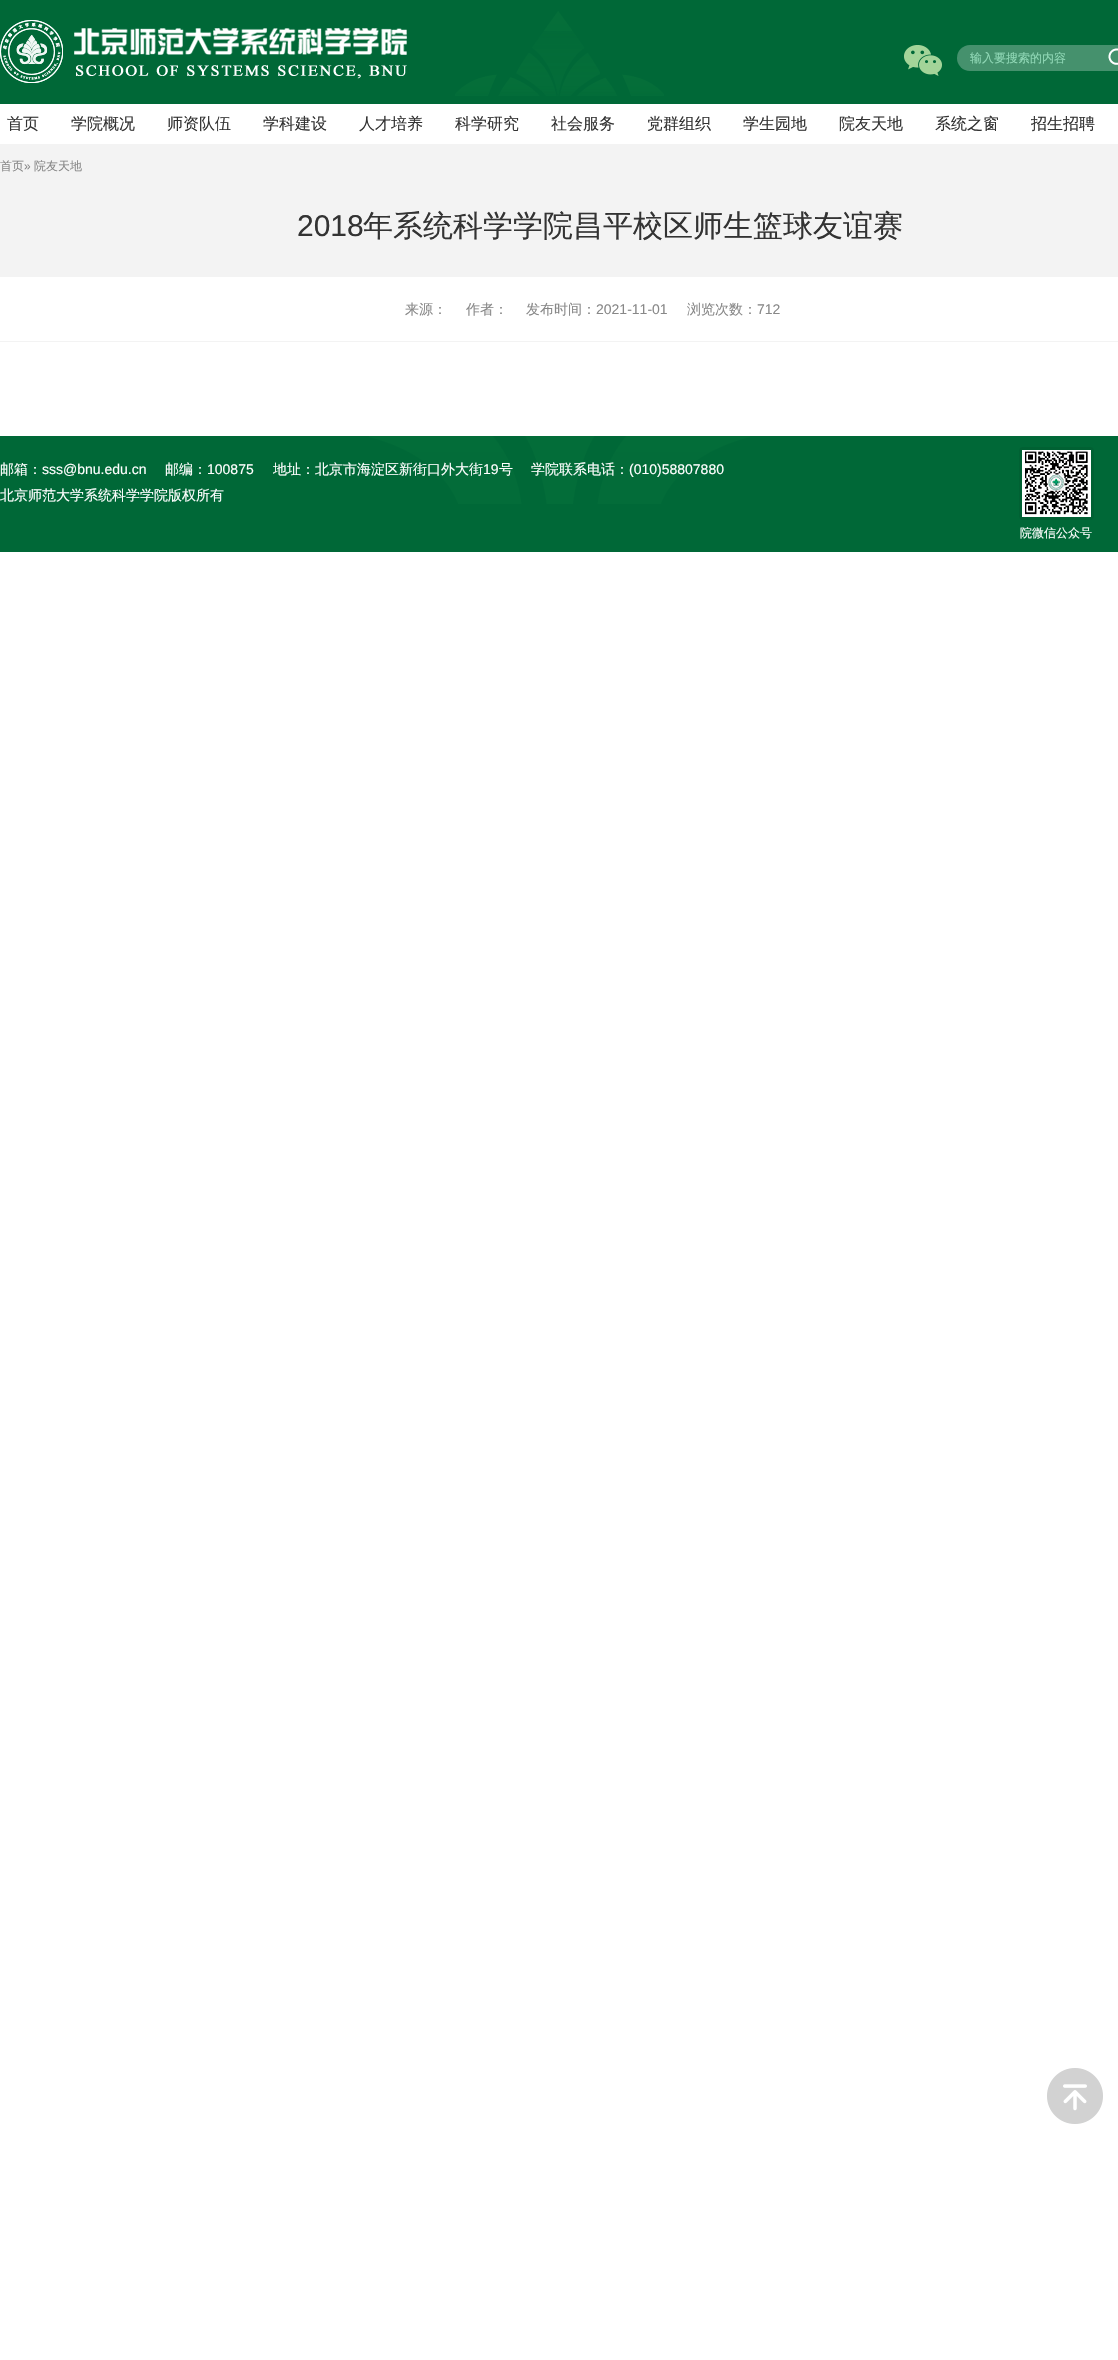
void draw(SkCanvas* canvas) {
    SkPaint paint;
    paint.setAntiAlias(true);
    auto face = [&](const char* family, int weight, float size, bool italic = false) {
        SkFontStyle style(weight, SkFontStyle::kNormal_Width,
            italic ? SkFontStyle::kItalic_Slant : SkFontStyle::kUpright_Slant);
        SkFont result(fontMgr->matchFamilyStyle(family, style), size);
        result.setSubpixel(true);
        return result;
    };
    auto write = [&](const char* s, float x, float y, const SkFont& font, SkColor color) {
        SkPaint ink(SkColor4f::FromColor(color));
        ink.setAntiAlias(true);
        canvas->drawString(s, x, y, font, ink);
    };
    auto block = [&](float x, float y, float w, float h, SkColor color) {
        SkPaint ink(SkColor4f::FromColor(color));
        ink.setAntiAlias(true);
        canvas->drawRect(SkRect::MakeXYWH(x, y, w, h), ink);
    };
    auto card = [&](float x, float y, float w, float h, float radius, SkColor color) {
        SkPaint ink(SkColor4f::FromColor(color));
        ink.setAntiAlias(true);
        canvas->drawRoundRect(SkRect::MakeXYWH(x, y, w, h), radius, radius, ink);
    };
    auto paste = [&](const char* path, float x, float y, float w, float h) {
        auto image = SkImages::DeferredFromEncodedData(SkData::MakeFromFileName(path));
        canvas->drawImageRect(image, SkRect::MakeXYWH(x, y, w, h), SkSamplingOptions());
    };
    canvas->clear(SK_ColorWHITE);
    block(0, 0, 1118, 104, SkColorSetRGB(0, 104, 55));
    paste("pic1.png", 455, 11, 209, 85);
    paste("pic2.png", 0, 20, 407, 63);
    paste("pic3.png", 904, 45, 38, 31);
    card(957, 45, 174, 26, 13, SkColorSetRGB(69, 145, 109));
    auto kFont1 = face("WenQuanYi Zen Hei", 500, 12);
    write("输入要搜索的内容", 970, 62, kFont1, SkColorSetRGB(144, 216, 182));
    paste("pic4.png", 1108, 48, 10, 17);
    auto kFont2 = face("WenQuanYi Zen Hei", 500, 16);
    write("首页", 7, 129, kFont2, SkColorSetRGB(51, 51, 51));
    write("学院概况", 71, 129, kFont2, SkColorSetRGB(51, 51, 51));
    write("师资队伍", 167, 129, kFont2, SkColorSetRGB(51, 51, 51));
    write("学科建设", 263, 129, kFont2, SkColorSetRGB(51, 51, 51));
    write("人才培养", 359, 129, kFont2, SkColorSetRGB(51, 51, 51));
    write("科学研究", 455, 129, kFont2, SkColorSetRGB(51, 51, 51));
    write("社会服务", 551, 129, kFont2, SkColorSetRGB(51, 51, 51));
    write("党群组织", 647, 129, kFont2, SkColorSetRGB(51, 51, 51));
    write("学生园地", 743, 129, kFont2, SkColorSetRGB(51, 51, 51));
    write("院友天地", 839, 129, kFont2, SkColorSetRGB(51, 51, 51));
    write("系统之窗", 935, 129, kFont2, SkColorSetRGB(51, 51, 51));
    write("招生招聘", 1031, 129, kFont2, SkColorSetRGB(51, 51, 51));
    block(0, 144, 1118, 133, SkColorSetRGB(243, 243, 243));
    write("首页", 0, 170, kFont1, SkColorSetRGB(136, 136, 136));
    auto kFont3 = face("Liberation Sans", 400, 12);
    write("»", 24, 170, kFont3, SkColorSetRGB(136, 136, 136));
    write("院友天地", 34, 170, kFont1, SkColorSetRGB(136, 136, 136));
    auto kFont4 = face("Liberation Sans", 400, 30);
    write("2018", 297, 236, kFont4, SkColorSetRGB(51, 51, 51));
    auto kFont5 = face("WenQuanYi Zen Hei", 500, 30);
    write("年系统科学学院昌平校区师生篮球友谊赛", 363, 236, kFont5, SkColorSetRGB(51, 51, 51));
    block(0, 341, 1118, 1, SkColorSetRGB(243, 243, 243));
    auto kFont6 = face("WenQuanYi Zen Hei", 500, 14);
    write("来源：", 405, 314, kFont6, SkColorSetRGB(136, 136, 136));
    write("作者：", 466, 314, kFont6, SkColorSetRGB(136, 136, 136));
    write("发布时间：", 526, 314, kFont6, SkColorSetRGB(136, 136, 136));
    auto kFont7 = face("Liberation Sans", 400, 14);
    write("2021-11-01", 596, 314, kFont7, SkColorSetRGB(136, 136, 136));
    write("浏览次数：", 687, 314, kFont6, SkColorSetRGB(136, 136, 136));
    write("712", 757, 314, kFont7, SkColorSetRGB(136, 136, 136));
    block(0, 436, 1118, 116, SkColorSetRGB(0, 104, 55));
    paste("pic5.png", 369, 436, 381, 68);
    write("邮箱：", 0, 474, kFont6, SK_ColorWHITE);
    write("sss@bnu.edu.cn", 42, 474, kFont7, SK_ColorWHITE);
    write("邮编：", 165, 474, kFont6, SK_ColorWHITE);
    write("100875", 207, 474, kFont7, SK_ColorWHITE);
    write("地址：北京市海淀区新街口外大街", 273, 474, kFont6, SK_ColorWHITE);
    write("19", 483, 474, kFont7, SK_ColorWHITE);
    write("号", 499, 474, kFont6, SK_ColorWHITE);
    write("学院联系电话：", 531, 474, kFont6, SK_ColorWHITE);
    write("(010)58807880", 629, 474, kFont7, SK_ColorWHITE);
    write("北京师范大学系统科学学院版权所有", 0, 500, kFont6, SK_ColorWHITE);
    paste("pic6.png", 1019, 447, 75, 73);
    write("院微信公众号", 1020, 537, kFont1, SK_ColorWHITE);
    paste("pic7.png", 1047, 2068, 56, 56);
}
